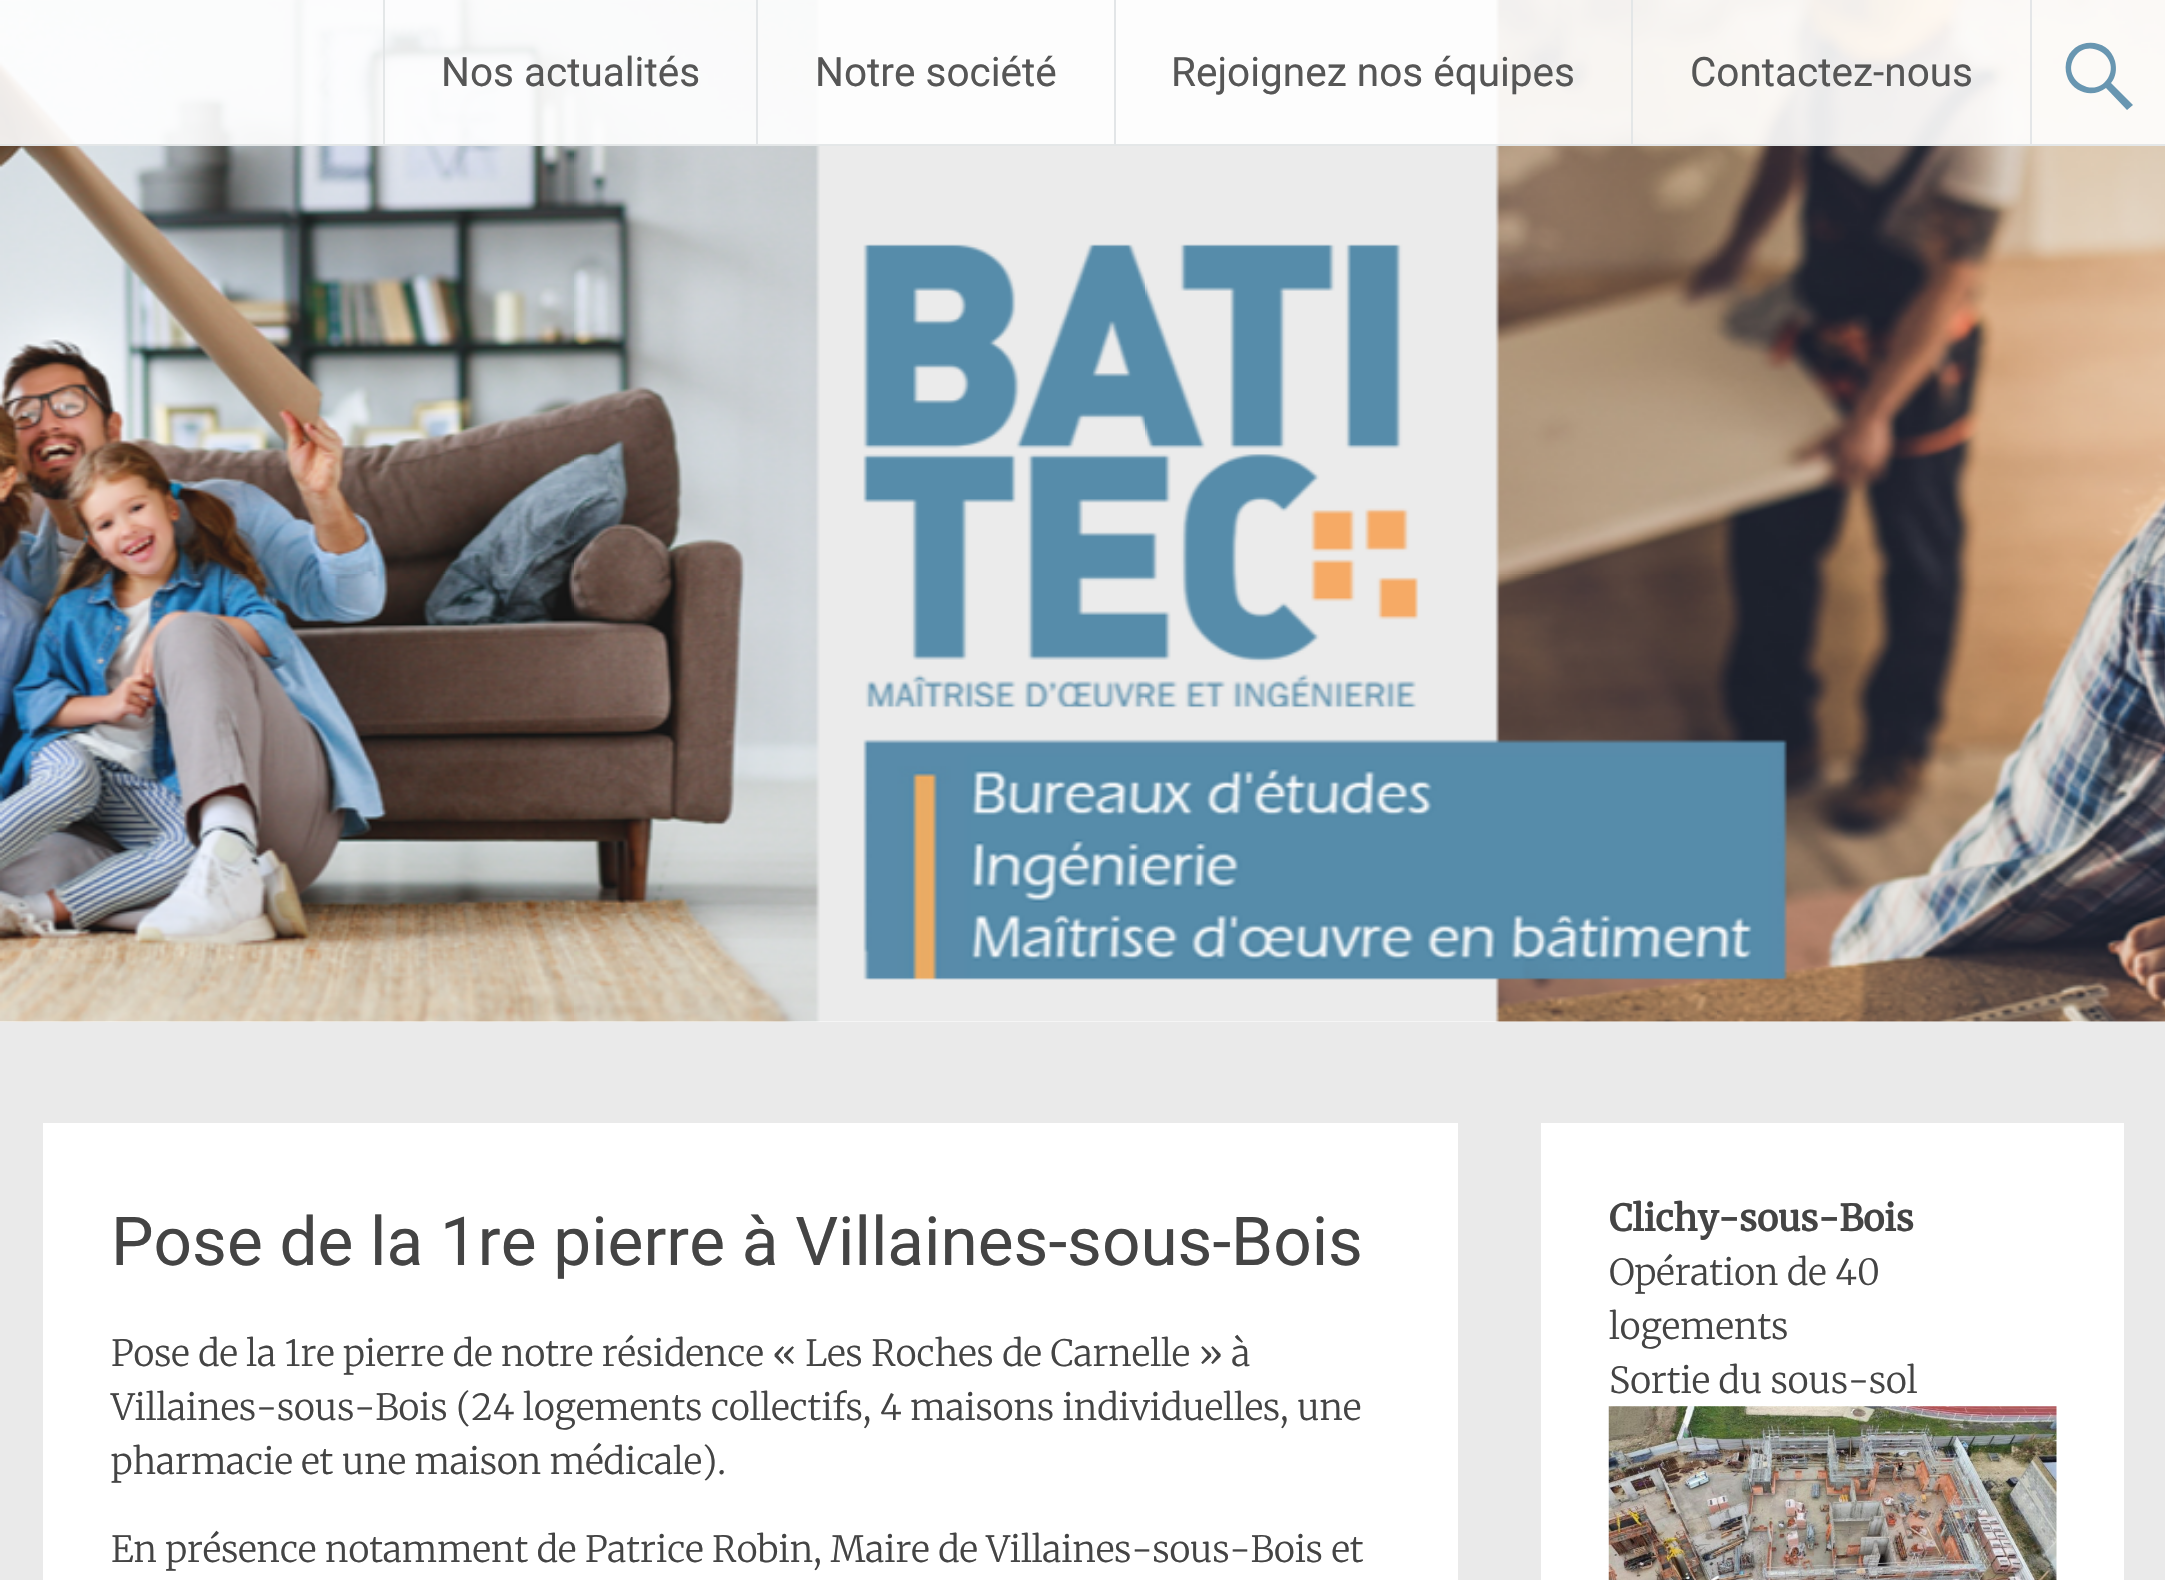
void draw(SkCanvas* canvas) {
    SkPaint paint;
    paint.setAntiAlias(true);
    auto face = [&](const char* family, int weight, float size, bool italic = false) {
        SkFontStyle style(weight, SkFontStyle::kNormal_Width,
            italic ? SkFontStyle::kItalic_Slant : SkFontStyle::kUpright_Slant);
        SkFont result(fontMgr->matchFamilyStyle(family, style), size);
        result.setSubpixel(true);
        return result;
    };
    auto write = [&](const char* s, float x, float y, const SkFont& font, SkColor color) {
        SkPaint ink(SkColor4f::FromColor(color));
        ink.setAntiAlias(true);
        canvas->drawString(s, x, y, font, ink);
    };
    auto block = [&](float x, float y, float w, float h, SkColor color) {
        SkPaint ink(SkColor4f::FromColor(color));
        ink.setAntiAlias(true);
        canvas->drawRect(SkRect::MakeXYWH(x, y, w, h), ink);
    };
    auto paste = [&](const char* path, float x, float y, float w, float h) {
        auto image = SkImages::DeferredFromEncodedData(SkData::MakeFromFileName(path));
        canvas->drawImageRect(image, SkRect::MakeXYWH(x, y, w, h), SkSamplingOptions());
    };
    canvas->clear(SK_ColorWHITE);
    paste("pic1.png", 0, 0, 2165, 1022);
    block(0, 0, 2165, 146, SkColorSetARGB(230, 255, 255, 255));
    block(0, 144, 2165, 2, SkColorSetARGB(230, 225, 228, 230));
    block(383, 0, 2, 144, SkColorSetARGB(230, 225, 228, 230));
    auto kFont1 = face("Roboto", 400, 40.5f);
    write("Nos actualités", 441, 86, kFont1, SkColorSetRGB(86, 86, 86));
    block(756, 0, 2, 144, SkColorSetRGB(227, 230, 232));
    write("Notre société", 815, 86, kFont1, SkColorSetRGB(86, 86, 86));
    block(1114, 0, 2, 144, SkColorSetRGB(226, 229, 231));
    write("Rejoignez nos équipes", 1171, 86, kFont1, SkColorSetRGB(86, 86, 86));
    block(1631, 0, 2, 144, SkColorSetARGB(230, 225, 228, 230));
    write("Contactez-nous", 1690, 86, kFont1, SkColorSetRGB(86, 86, 86));
    block(2030, 0, 2, 144, SkColorSetRGB(228, 230, 232));
    paint.setColor(SkColorSetRGB(104, 150, 177));
    canvas->drawPath(SkPathBuilder().moveTo(2133, 105).lineTo(2127, 110).lineTo(2106, 88).cubicTo(2093, 98, 2075, 93, 2068, 79).cubicTo(2066, 74, 2065, 69, 2066, 63).cubicTo(2071, 37, 2108, 36, 2115, 61).cubicTo(2117, 69, 2116, 77, 2111, 83).close().moveTo(2074, 58).cubicTo(2061, 80, 2095, 100, 2108, 78).cubicTo(2121, 56, 2087, 36, 2074, 58).close().detach(), paint);
    block(0, 1022, 2165, 558, SkColorSetRGB(234, 234, 234));
    block(43, 1123, 1415, 457, SK_ColorWHITE);
    auto kFont2 = face("Roboto", 400, 67.5f);
    write("Pose de la 1re pierre à Villaines-sous-Bois", 111, 1265, kFont2, SkColorSetRGB(68, 68, 68));
    auto kFont3 = face("Merriweather", 300, 36);
    write("Pose de la 1re pierre de notre résidence « Les Roches de Carnelle » à", 111, 1366, kFont3, SkColorSetRGB(68, 68, 68));
    write("Villaines-sous-Bois (24 logements collectifs, 4 maisons individuelles, une", 111, 1420, kFont3, SkColorSetRGB(68, 68, 68));
    write("pharmacie et une maison médicale).", 111, 1474, kFont3, SkColorSetRGB(68, 68, 68));
    write("En présence notamment de Patrice Robin, Maire de Villaines-sous-Bois et", 111, 1562, kFont3, SkColorSetRGB(68, 68, 68));
    block(1541, 1123, 583, 457, SK_ColorWHITE);
    auto kFont4 = face("Merriweather", 700, 36);
    write("Clichy-sous-Bois", 1609, 1231, kFont4, SkColorSetRGB(68, 68, 68));
    write("Opération de 40", 1609, 1285, kFont3, SkColorSetRGB(68, 68, 68));
    write("logements", 1609, 1339, kFont3, SkColorSetRGB(68, 68, 68));
    write("Sortie du sous-sol", 1609, 1393, kFont3, SkColorSetRGB(68, 68, 68));
    paste("pic2.png", 1608, 1406, 449, 174);
}
